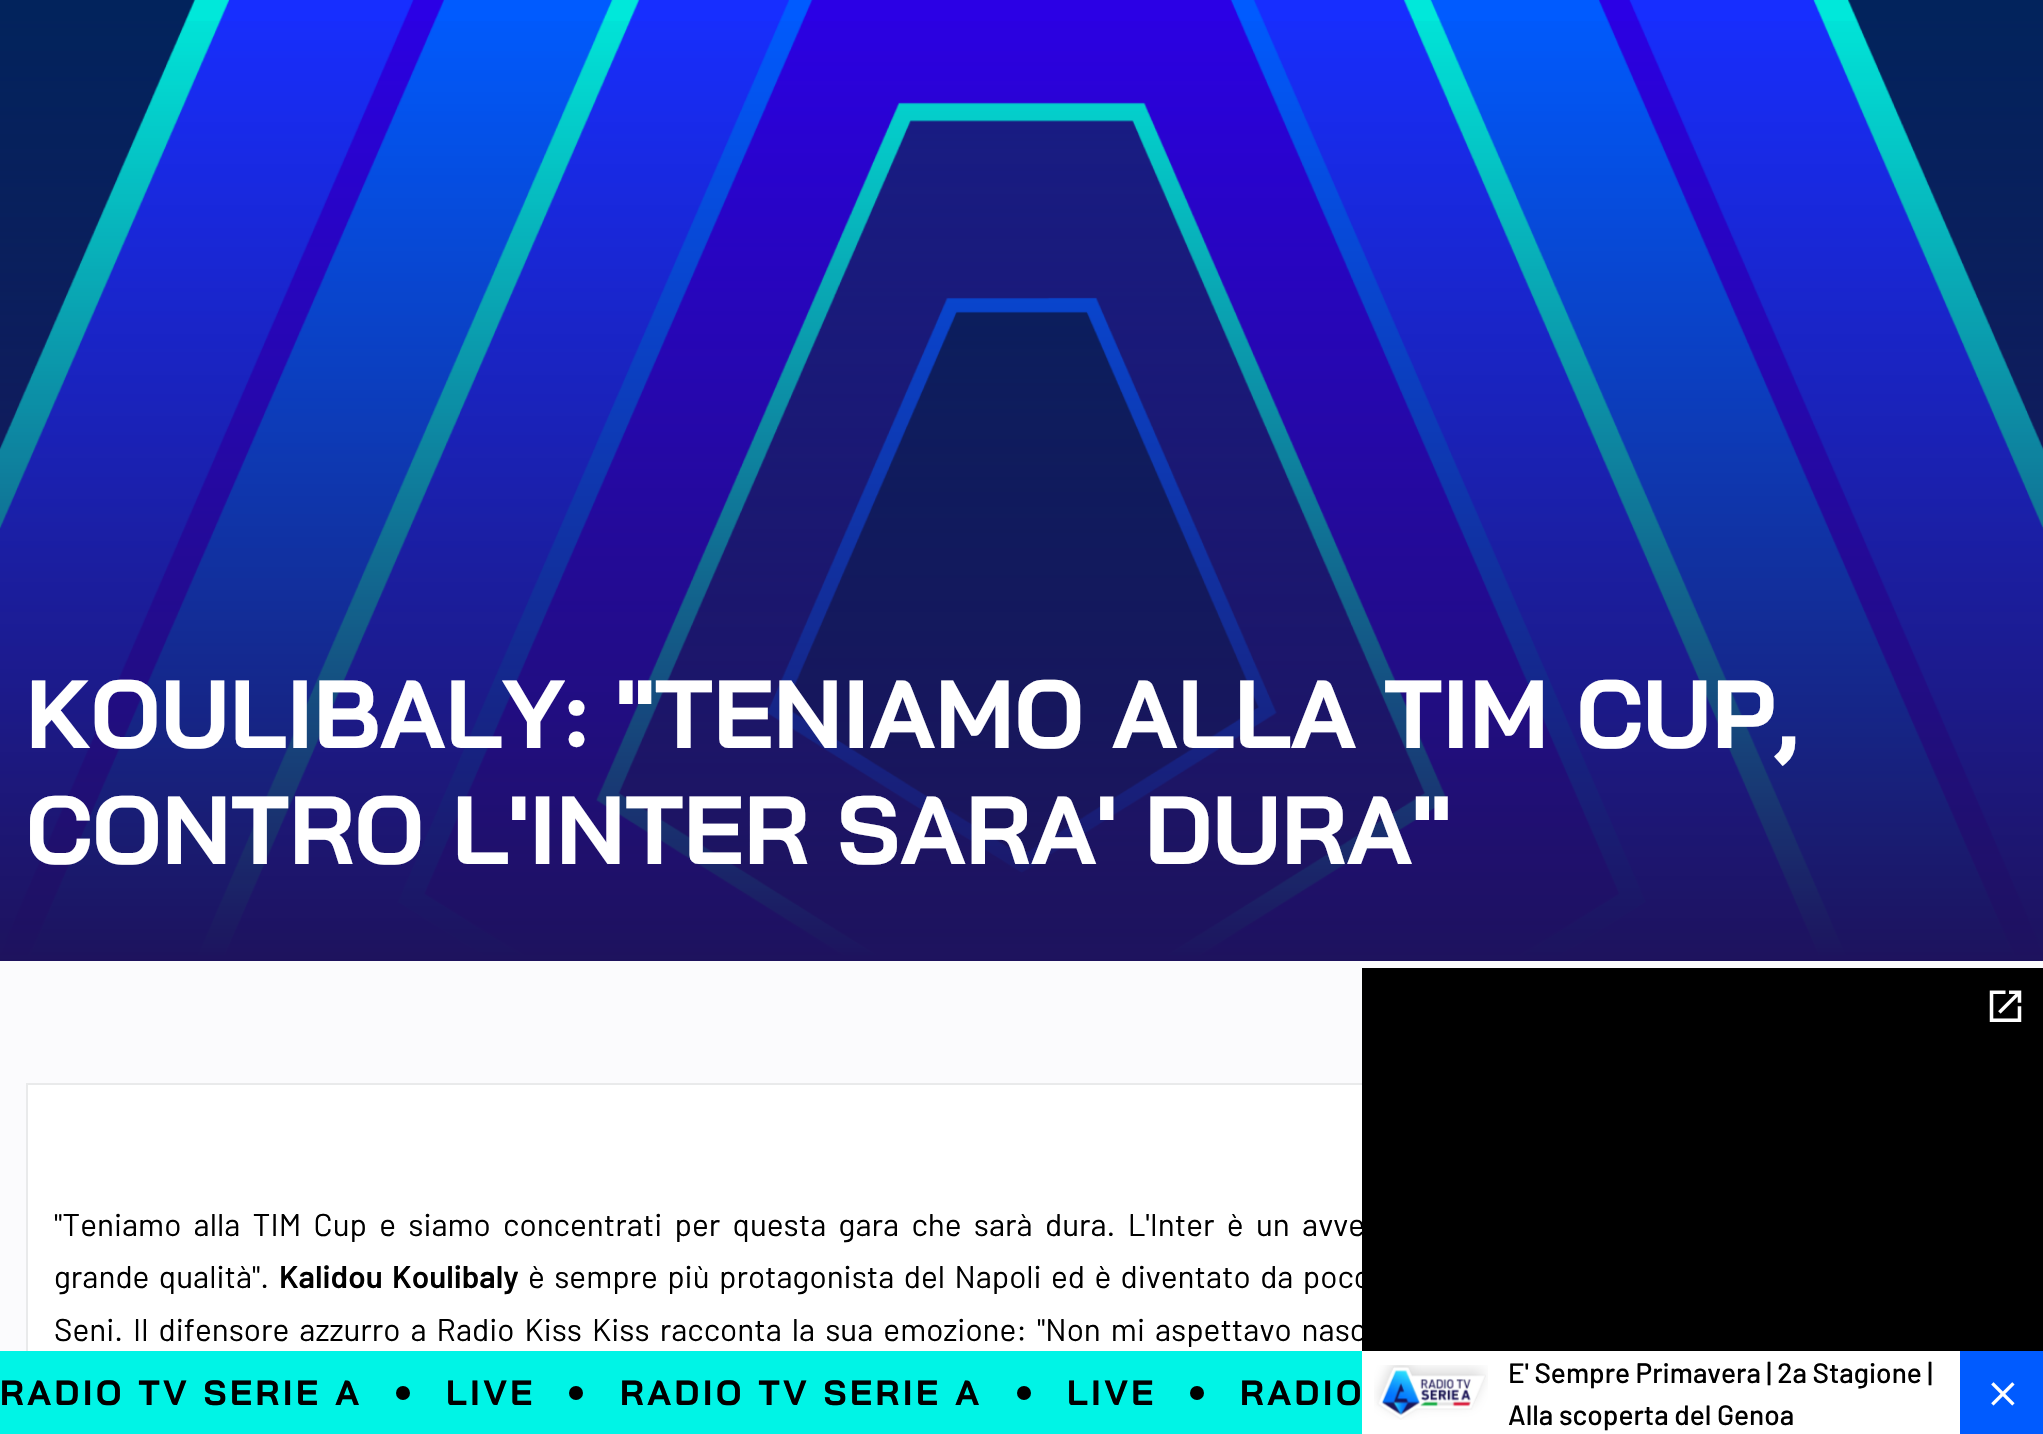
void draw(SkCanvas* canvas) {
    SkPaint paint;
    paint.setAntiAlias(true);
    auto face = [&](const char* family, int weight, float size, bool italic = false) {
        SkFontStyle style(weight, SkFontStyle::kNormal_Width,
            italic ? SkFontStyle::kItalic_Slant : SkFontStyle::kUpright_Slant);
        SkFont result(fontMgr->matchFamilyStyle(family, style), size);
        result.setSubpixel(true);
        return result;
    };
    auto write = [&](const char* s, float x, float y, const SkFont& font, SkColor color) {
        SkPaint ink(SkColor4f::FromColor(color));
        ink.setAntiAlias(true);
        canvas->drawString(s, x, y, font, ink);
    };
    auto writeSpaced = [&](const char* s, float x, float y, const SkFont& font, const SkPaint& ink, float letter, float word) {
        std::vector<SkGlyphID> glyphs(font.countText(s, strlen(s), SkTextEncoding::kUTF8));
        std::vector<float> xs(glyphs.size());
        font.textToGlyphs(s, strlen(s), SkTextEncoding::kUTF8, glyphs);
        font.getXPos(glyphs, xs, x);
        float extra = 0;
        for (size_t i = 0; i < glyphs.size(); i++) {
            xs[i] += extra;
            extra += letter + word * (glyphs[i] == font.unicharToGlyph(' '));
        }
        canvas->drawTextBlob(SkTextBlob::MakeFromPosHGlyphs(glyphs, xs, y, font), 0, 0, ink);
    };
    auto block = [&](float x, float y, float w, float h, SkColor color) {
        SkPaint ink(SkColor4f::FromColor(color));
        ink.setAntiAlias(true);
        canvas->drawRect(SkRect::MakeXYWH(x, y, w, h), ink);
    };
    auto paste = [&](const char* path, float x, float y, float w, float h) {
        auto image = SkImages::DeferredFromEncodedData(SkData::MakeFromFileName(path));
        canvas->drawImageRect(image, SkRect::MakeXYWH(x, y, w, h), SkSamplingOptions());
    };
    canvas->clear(SkColorSetRGB(251, 251, 253));
    paste("pic1.png", 0, 0, 2043, 955);
    {
        const SkColor colors[] = {SkColorSetRGB(29, 18, 93), SkColorSetARGB(0, 29, 18, 93)};
        const float stops[] = {0, 1};
        const SkPoint ends[] = {{1022, 961}, {1022, 0}};
        paint.setShader(SkGradientShader::MakeLinear(ends, colors, stops, 2, SkTileMode::kClamp));
        paint.setAlpha(255);
    }
    canvas->drawRect(SkRect::MakeXYWH(0, 21, 2043, 940), paint);
    auto kFont1 = face("Bai Jamjuree", 700, 96.25f);
    write("KOULIBALY: \"TENIAMO ALLA TIM CUP,", 26, 748, kFont1, SK_ColorWHITE);
    write("CONTRO L'INTER SARA' DURA\"", 26, 864, kFont1, SK_ColorWHITE);
    block(28, 1085, 1334, 266, SK_ColorWHITE);
    paint.setStyle(SkPaint::kStroke_Style);
    paint.setStrokeWidth(2);
    paint.setShader(nullptr);
    paint.setColor(SkColorSetRGB(233, 234, 235));
    canvas->drawRect(SkRect::MakeXYWH(27, 1084, 1482, 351), paint);
    auto kFont2 = face("Barlow", 400, 31.5f);
    paint.setStyle(SkPaint::kFill_Style);
    paint.setColor(SK_ColorBLACK);
    writeSpaced("\"Teniamo alla TIM Cup e siamo concentrati per questa gara che sarà dura. L'Inter è un avve", 54, 1236, kFont2, paint, 0, 6);
    writeSpaced("grande qualità\".", 54, 1288, kFont2, paint, 0, 3.1f);
    auto kFont3 = face("Barlow", 600, 31.5f);
    writeSpaced("Kalidou Koulibaly", 279, 1288, kFont3, paint, 0, 3.1f);
    writeSpaced("è sempre più protagonista del Napoli ed è diventato da poco", 528, 1288, kFont2, paint, 0, 3.1f);
    writeSpaced("Seni. Il difensore azzurro a Radio Kiss Kiss racconta la sua emozione: \"Non mi aspettavo nasc", 54, 1341, kFont2, paint, 0, 3.75f);
    block(0, 1351, 1362, 83, SkColorSetRGB(0, 244, 230));
    auto kFont4 = face("Bai Jamjuree", 700, 35);
    writeSpaced("RADIO TV SERIE A", 0, 1405, kFont4, paint, 3.5f, 0);
    canvas->drawCircle(403, 1393, 7, paint);
    writeSpaced("LIVE", 446, 1405, kFont4, paint, 3.5f, 0);
    canvas->drawCircle(576, 1393, 7, paint);
    writeSpaced("RADIO TV SERIE A", 620, 1405, kFont4, paint, 3.5f, 0);
    canvas->drawCircle(1024, 1393, 7, paint);
    writeSpaced("LIVE", 1067, 1405, kFont4, paint, 3.5f, 0);
    canvas->drawCircle(1197, 1393, 7, paint);
    writeSpaced("RADIO", 1240, 1405, kFont4, paint, 3.5f, 0);
    block(1362, 968, 681, 383, SK_ColorBLACK);
    paste("pic2.png", 1989, 990, 33, 32);
    block(1362, 1351, 598, 83, SK_ColorWHITE);
    paste("pic3.png", 1374, 1365, 114, 55);
    auto kFont5 = face("Barlow", 500, 28);
    write("E' Sempre Primavera | 2a Stagione |", 1508, 1383, kFont5, SK_ColorBLACK);
    write("Alla scoperta del Genoa", 1508, 1425, kFont5, SK_ColorBLACK);
    block(1960, 1351, 83, 83, SkColorSetRGB(0, 91, 255));
    paste("pic4.png", 1991, 1382, 24, 24);
}
